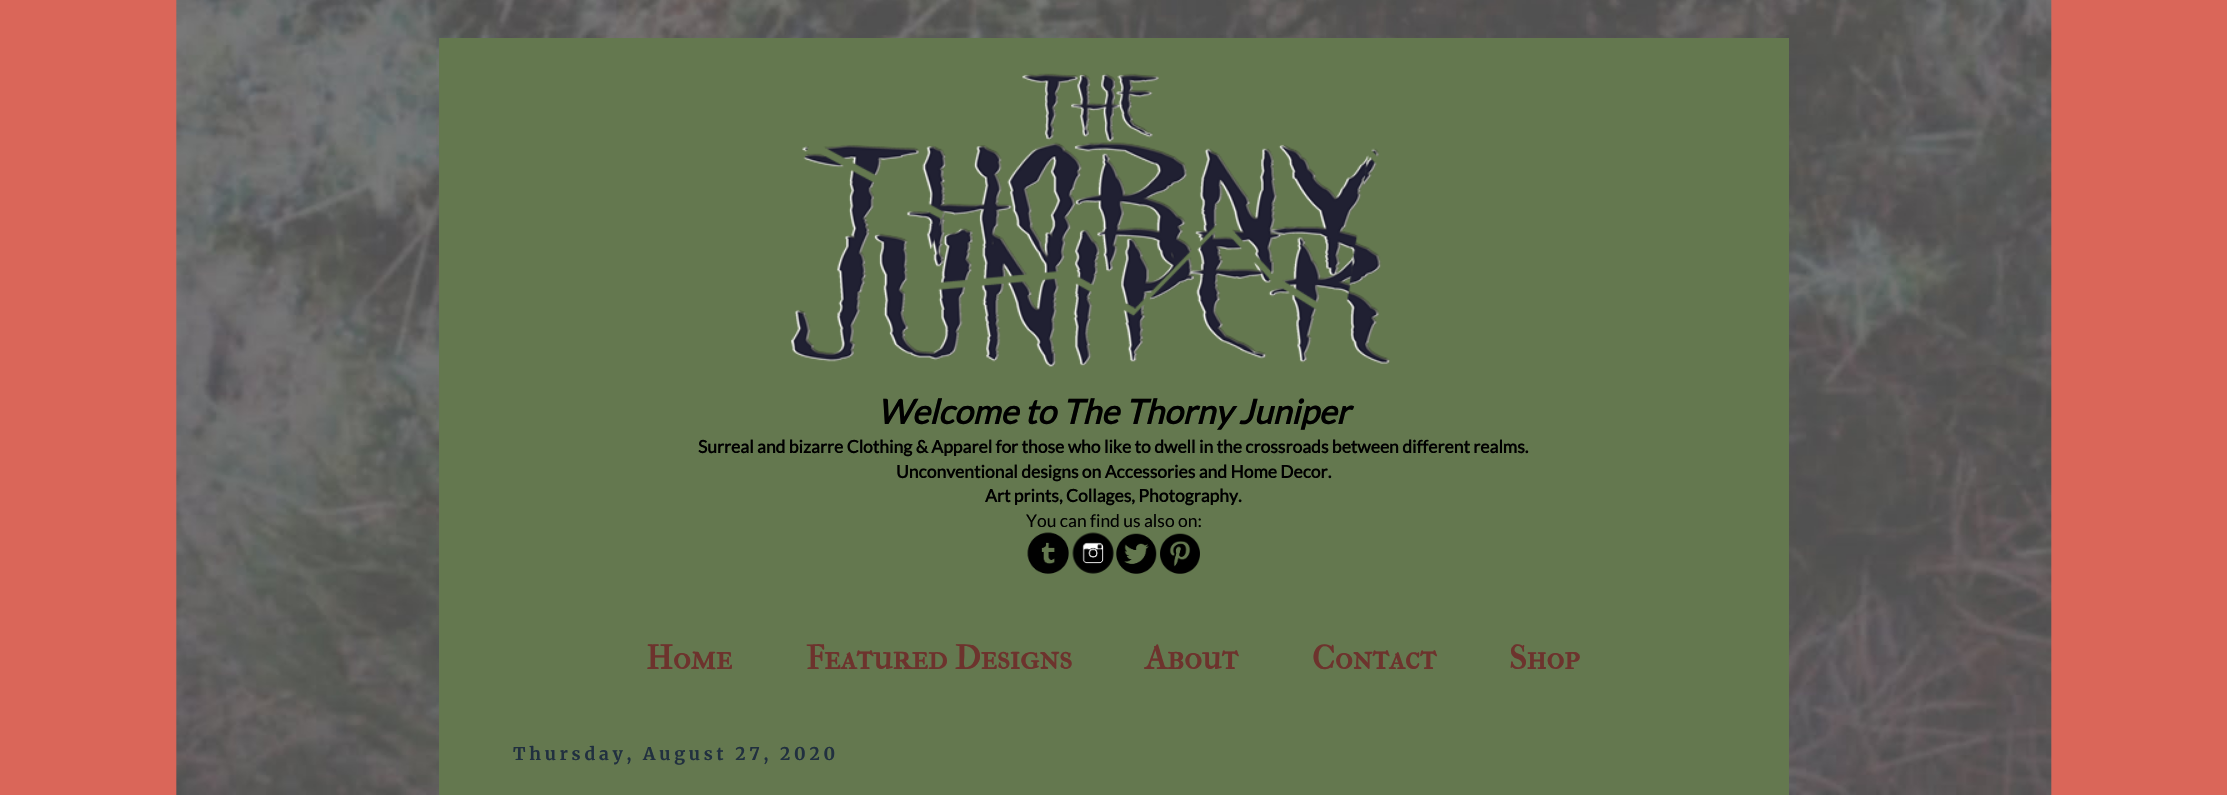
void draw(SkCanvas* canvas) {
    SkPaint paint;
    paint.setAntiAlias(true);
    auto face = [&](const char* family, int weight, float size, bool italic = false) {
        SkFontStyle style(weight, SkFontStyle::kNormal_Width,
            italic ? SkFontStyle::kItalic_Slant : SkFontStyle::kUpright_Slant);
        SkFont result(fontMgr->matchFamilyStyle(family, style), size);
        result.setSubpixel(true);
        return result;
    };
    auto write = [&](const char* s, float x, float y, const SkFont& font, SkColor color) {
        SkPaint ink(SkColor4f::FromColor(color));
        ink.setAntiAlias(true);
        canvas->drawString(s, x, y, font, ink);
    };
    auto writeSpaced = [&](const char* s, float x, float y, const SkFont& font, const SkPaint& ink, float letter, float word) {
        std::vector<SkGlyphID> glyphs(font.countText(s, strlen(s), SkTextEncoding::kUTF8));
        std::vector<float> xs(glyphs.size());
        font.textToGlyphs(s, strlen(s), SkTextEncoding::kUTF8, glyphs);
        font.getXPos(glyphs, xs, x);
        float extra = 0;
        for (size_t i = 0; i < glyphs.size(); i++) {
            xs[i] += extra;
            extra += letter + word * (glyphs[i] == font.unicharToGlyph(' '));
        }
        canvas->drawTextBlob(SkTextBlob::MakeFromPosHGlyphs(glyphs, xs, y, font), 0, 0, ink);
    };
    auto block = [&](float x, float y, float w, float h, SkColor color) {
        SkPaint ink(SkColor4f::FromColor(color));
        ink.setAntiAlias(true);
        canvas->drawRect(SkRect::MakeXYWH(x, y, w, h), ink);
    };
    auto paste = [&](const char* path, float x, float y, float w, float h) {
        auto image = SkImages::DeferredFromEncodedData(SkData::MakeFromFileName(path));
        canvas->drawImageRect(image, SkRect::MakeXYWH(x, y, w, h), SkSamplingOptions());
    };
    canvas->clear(SkColorSetRGB(218, 102, 89));
    paste("pic1.png", 176, 0, 1876, 795);
    block(439, 38, 1350, 757, SkColorSetRGB(100, 120, 79));
    paste("pic2.png", 791, 73, 599, 294);
    auto kFont1 = face("Lato", 700, 33.75f, true);
    write("Welcome to The Thorny Juniper", 877, 424, kFont1, SK_ColorBLACK);
    auto kFont2 = face("Lato", 700, 17.5f);
    write("Surreal and bizarre Clothing & Apparel for those who like to dwell in the crossroads between different realms.", 698, 453, kFont2, SK_ColorBLACK);
    write("Unconventional designs on Accessories and Home Decor.", 896, 478, kFont2, SK_ColorBLACK);
    write("Art prints, Collages, Photography.", 985, 502, kFont2, SK_ColorBLACK);
    auto kFont3 = face("Lato", 400, 17.5f);
    write("You can find us also on:", 1026, 527, kFont3, SK_ColorBLACK);
    paste("pic3.png", 1027, 532, 42, 42);
    paste("pic4.png", 1072, 532, 42, 42);
    paste("pic5.png", 1116, 533, 41, 41);
    paste("pic6.png", 1160, 533, 40, 41);
    auto kFont4 = face("IM FELL French Canon SC", 700, 33.75f);
    write("Home", 646, 669, kFont4, SkColorSetRGB(109, 51, 45));
    write("Featured Designs", 806, 669, kFont4, SkColorSetRGB(109, 51, 45));
    write("About", 1145, 669, kFont4, SkColorSetRGB(109, 51, 45));
    write("Contact", 1312, 669, kFont4, SkColorSetRGB(109, 51, 45));
    write("Shop", 1509, 669, kFont4, SkColorSetRGB(109, 51, 45));
    auto kFont5 = face("Merriweather", 300, 17.5f);
    paint.setColor(SkColorSetRGB(33, 48, 63));
    writeSpaced("Thursday, August 27, 2020", 513, 760, kFont5, paint, 3.75f, 0);
}
